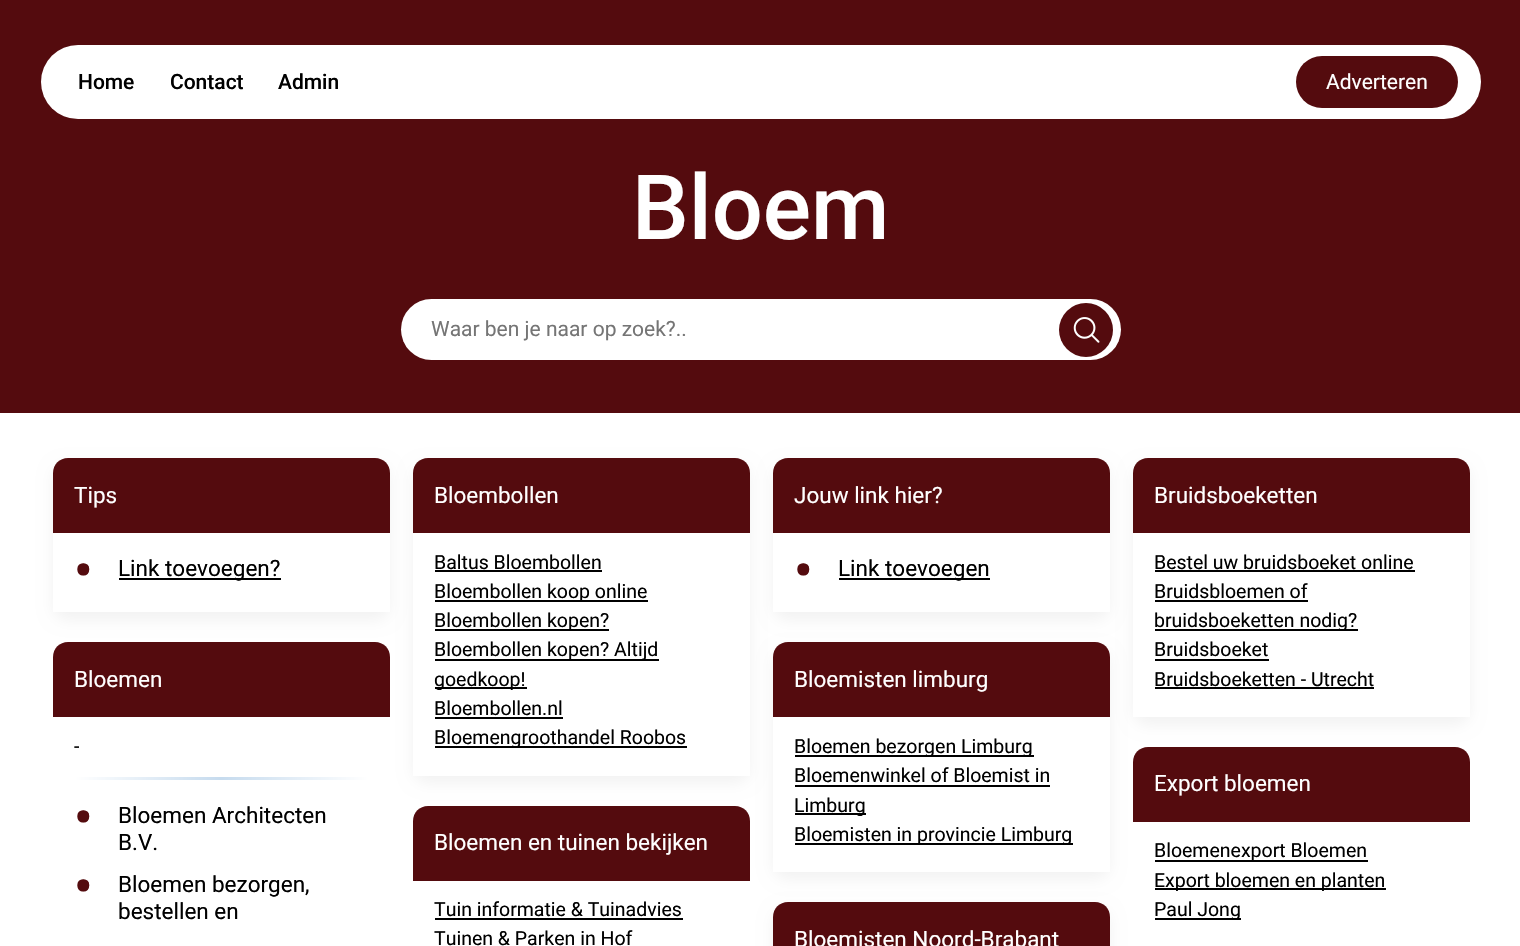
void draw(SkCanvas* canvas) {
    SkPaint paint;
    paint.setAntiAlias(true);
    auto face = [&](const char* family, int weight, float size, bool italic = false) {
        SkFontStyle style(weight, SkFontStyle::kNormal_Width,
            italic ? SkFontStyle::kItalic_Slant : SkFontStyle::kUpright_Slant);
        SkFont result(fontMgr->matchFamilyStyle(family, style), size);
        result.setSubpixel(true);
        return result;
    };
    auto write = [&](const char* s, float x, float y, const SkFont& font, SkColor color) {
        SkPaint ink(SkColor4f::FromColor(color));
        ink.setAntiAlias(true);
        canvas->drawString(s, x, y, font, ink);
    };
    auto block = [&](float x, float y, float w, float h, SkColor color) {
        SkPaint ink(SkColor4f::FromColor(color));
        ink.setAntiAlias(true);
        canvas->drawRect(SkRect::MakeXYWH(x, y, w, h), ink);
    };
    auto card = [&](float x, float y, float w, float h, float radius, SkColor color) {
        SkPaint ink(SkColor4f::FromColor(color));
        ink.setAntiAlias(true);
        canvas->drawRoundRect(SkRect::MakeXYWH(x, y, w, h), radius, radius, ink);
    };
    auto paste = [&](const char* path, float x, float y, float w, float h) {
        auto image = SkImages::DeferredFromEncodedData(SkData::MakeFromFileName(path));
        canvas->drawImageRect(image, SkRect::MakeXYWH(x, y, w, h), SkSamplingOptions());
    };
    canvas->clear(SK_ColorWHITE);
    block(0, 0, 1520, 413, SkColorSetRGB(84, 11, 14));
    card(41, 45, 1440, 74, 37, SK_ColorWHITE);
    auto kFont1 = face("Roboto", 500, 21);
    write("Home", 78, 89, kFont1, SK_ColorBLACK);
    write("Contact", 170, 89, kFont1, SK_ColorBLACK);
    write("Admin", 278, 89, kFont1, SK_ColorBLACK);
    card(1296, 56, 162, 52, 26, SkColorSetRGB(84, 11, 14));
    auto kFont2 = face("Roboto", 400, 21);
    write("Adverteren", 1326, 89, kFont2, SK_ColorWHITE);
    auto kFont3 = face("Roboto", 500, 90);
    write("Bloem", 632, 239, kFont3, SK_ColorWHITE);
    card(401, 299, 720, 61, 30.5f, SK_ColorWHITE);
    write("Waar ben je naar op zoek?..", 431, 336, kFont2, SkColorSetRGB(117, 117, 117));
    paint.setColor(SkColorSetRGB(84, 11, 14));
    canvas->drawCircle(1086, 330, 27, paint);
    paste("pic1.png", 1073, 317, 27, 26);
    canvas->save();
    canvas->clipPath(SkPathBuilder(SkPathFillType::kEvenOdd).moveTo(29, 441).lineTo(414, 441).lineTo(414, 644).lineTo(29, 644).close().moveTo(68, 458).lineTo(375, 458).cubicTo(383.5f, 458, 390, 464.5f, 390, 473).lineTo(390, 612).lineTo(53, 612).lineTo(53, 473).cubicTo(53, 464.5f, 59.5f, 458, 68, 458).close().detach(), true);
    paint.setColor(SkColorSetARGB(13, 0, 0, 0));
    paint.setMaskFilter(SkMaskFilter::MakeBlur(kNormal_SkBlurStyle, 7.5f));
    canvas->drawRoundRect(SkRect::MakeXYWH(53, 465, 337, 155), 15, 15, paint);
    paint.setMaskFilter(nullptr);
    canvas->restore();
    paint.setColor(SkColorSetRGB(84, 11, 14));
    canvas->drawPath(SkPathBuilder().moveTo(68, 458).lineTo(375, 458).cubicTo(383.5f, 458, 390, 464.5f, 390, 473).lineTo(390, 533).lineTo(53, 533).lineTo(53, 473).cubicTo(53, 464.5f, 59.5f, 458, 68, 458).close().detach(), paint);
    auto kFont4 = face("Roboto", 400, 22.5f);
    write("Tips", 74, 503, kFont4, SK_ColorWHITE);
    auto kFont5 = face("Roboto", 700, 51);
    write("•", 74, 588, kFont5, SkColorSetRGB(84, 11, 14));
    block(119, 578, 162, 2, SK_ColorBLACK);
    write("Link toevoegen?", 118, 576, kFont4, SK_ColorBLACK);
    canvas->drawPath(SkPathBuilder().moveTo(68, 642).lineTo(375, 642).cubicTo(383.5f, 642, 390, 648.5f, 390, 657).lineTo(390, 717).lineTo(53, 717).lineTo(53, 657).cubicTo(53, 648.5f, 59.5f, 642, 68, 642).close().detach(), paint);
    write("Bloemen", 74, 687, kFont4, SK_ColorWHITE);
    auto kFont6 = face("Roboto", 400, 19.5f);
    write("-", 74, 753, kFont6, SK_ColorBLACK);
    {
        const SkColor colors[] = {SK_ColorWHITE, SkColorSetRGB(198, 219, 238), SK_ColorWHITE};
        const float stops[] = {0, 0.5f, 1};
        const SkPoint ends[] = {{75, 779}, {368, 779}};
        paint.setShader(SkGradientShader::MakeLinear(ends, colors, stops, 3, SkTileMode::kClamp));
        paint.setAlpha(255);
    }
    canvas->drawRect(SkRect::MakeXYWH(75, 777, 293, 3), paint);
    write("•", 74, 835, kFont5, SkColorSetRGB(84, 11, 14));
    write("Bloemen Architecten", 118, 823, kFont4, SK_ColorBLACK);
    write("B.V.", 118, 850, kFont4, SK_ColorBLACK);
    write("•", 74, 904, kFont5, SkColorSetRGB(84, 11, 14));
    write("Bloemen bezorgen,", 118, 892, kFont4, SK_ColorBLACK);
    write("bestellen en", 118, 919, kFont4, SK_ColorBLACK);
    paint.setShader(nullptr);
    paint.setColor(SkColorSetARGB(13, 0, 0, 0));
    paint.setMaskFilter(SkMaskFilter::MakeBlur(kNormal_SkBlurStyle, 7.5f));
    canvas->drawRoundRect(SkRect::MakeXYWH(413, 465, 337, 318), 15, 15, paint);
    paint.setMaskFilter(nullptr);
    paint.setColor(SK_ColorWHITE);
    canvas->drawPath(SkPathBuilder().moveTo(428, 458).lineTo(735, 458).cubicTo(743.5f, 458, 750, 464.5f, 750, 473).lineTo(750, 776).lineTo(413, 776).lineTo(413, 473).cubicTo(413, 464.5f, 419.5f, 458, 428, 458).close().detach(), paint);
    paint.setColor(SkColorSetRGB(84, 11, 14));
    canvas->drawPath(SkPathBuilder().moveTo(428, 458).lineTo(735, 458).cubicTo(743.5f, 458, 750, 464.5f, 750, 473).lineTo(750, 533).lineTo(413, 533).lineTo(413, 473).cubicTo(413, 464.5f, 419.5f, 458, 428, 458).close().detach(), paint);
    write("Bloembollen", 434, 503, kFont4, SK_ColorWHITE);
    write("Baltus Bloembollen", 434, 569, kFont6, SK_ColorBLACK);
    block(435, 570, 167, 2, SK_ColorBLACK);
    block(435, 600, 213, 2, SK_ColorBLACK);
    write("Bloembollen koop online", 434, 598, kFont6, SK_ColorBLACK);
    block(435, 629, 174, 2, SK_ColorBLACK);
    write("Bloembollen kopen?", 434, 627, kFont6, SK_ColorBLACK);
    block(435, 659, 224, 2, SK_ColorBLACK);
    write("Bloembollen kopen? Altijd", 434, 656, kFont6, SK_ColorBLACK);
    block(435, 687, 92, 2, SK_ColorBLACK);
    write("goedkoop!", 434, 686, kFont6, SK_ColorBLACK);
    write("Bloembollen.nl", 434, 715, kFont6, SK_ColorBLACK);
    block(435, 717, 128, 2, SK_ColorBLACK);
    block(435, 746, 252, 2, SK_ColorBLACK);
    write("Bloemengroothandel Roobos", 434, 744, kFont6, SK_ColorBLACK);
    canvas->drawPath(SkPathBuilder().moveTo(428, 806).lineTo(735, 806).cubicTo(743.5f, 806, 750, 812.5f, 750, 821).lineTo(750, 881).lineTo(413, 881).lineTo(413, 821).cubicTo(413, 812.5f, 419.5f, 806, 428, 806).close().detach(), paint);
    write("Bloemen en tuinen bekijken", 434, 850, kFont4, SK_ColorWHITE);
    write("Tuin informatie & Tuinadvies", 434, 916, kFont6, SK_ColorBLACK);
    block(435, 918, 248, 2, SK_ColorBLACK);
    write("Tuinen & Parken in Hof", 434, 945, kFont6, SK_ColorBLACK);
    canvas->save();
    canvas->clipPath(SkPathBuilder(SkPathFillType::kEvenOdd).moveTo(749, 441).lineTo(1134, 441).lineTo(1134, 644).lineTo(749, 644).close().moveTo(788, 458).lineTo(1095, 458).cubicTo(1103.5f, 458, 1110, 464.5f, 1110, 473).lineTo(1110, 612).lineTo(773, 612).lineTo(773, 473).cubicTo(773, 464.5f, 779.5f, 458, 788, 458).close().detach(), true);
    paint.setColor(SkColorSetARGB(13, 0, 0, 0));
    paint.setMaskFilter(SkMaskFilter::MakeBlur(kNormal_SkBlurStyle, 7.5f));
    canvas->drawRoundRect(SkRect::MakeXYWH(773, 465, 337, 155), 15, 15, paint);
    paint.setMaskFilter(nullptr);
    canvas->restore();
    paint.setColor(SkColorSetRGB(84, 11, 14));
    canvas->drawPath(SkPathBuilder().moveTo(788, 458).lineTo(1095, 458).cubicTo(1103.5f, 458, 1110, 464.5f, 1110, 473).lineTo(1110, 533).lineTo(773, 533).lineTo(773, 473).cubicTo(773, 464.5f, 779.5f, 458, 788, 458).close().detach(), paint);
    write("Jouw link hier?", 794, 503, kFont4, SK_ColorWHITE);
    write("•", 794, 588, kFont5, SkColorSetRGB(84, 11, 14));
    block(839, 578, 151, 2, SK_ColorBLACK);
    write("Link toevoegen", 838, 576, kFont4, SK_ColorBLACK);
    paint.setColor(SkColorSetARGB(13, 0, 0, 0));
    paint.setMaskFilter(SkMaskFilter::MakeBlur(kNormal_SkBlurStyle, 7.5f));
    canvas->drawRoundRect(SkRect::MakeXYWH(773, 650, 337, 229), 15, 15, paint);
    paint.setMaskFilter(nullptr);
    paint.setColor(SK_ColorWHITE);
    canvas->drawPath(SkPathBuilder().moveTo(788, 642).lineTo(1095, 642).cubicTo(1103.5f, 642, 1110, 648.5f, 1110, 657).lineTo(1110, 872).lineTo(773, 872).lineTo(773, 657).cubicTo(773, 648.5f, 779.5f, 642, 788, 642).close().detach(), paint);
    paint.setColor(SkColorSetRGB(84, 11, 14));
    canvas->drawPath(SkPathBuilder().moveTo(788, 642).lineTo(1095, 642).cubicTo(1103.5f, 642, 1110, 648.5f, 1110, 657).lineTo(1110, 717).lineTo(773, 717).lineTo(773, 657).cubicTo(773, 648.5f, 779.5f, 642, 788, 642).close().detach(), paint);
    write("Bloemisten limburg", 794, 687, kFont4, SK_ColorWHITE);
    block(795, 755, 239, 2, SK_ColorBLACK);
    write("Bloemen bezorgen Limburg", 794, 753, kFont6, SK_ColorBLACK);
    write("Bloemenwinkel of Bloemist in", 794, 782, kFont6, SK_ColorBLACK);
    block(795, 785, 255, 2, SK_ColorBLACK);
    block(795, 813, 71, 2, SK_ColorBLACK);
    write("Limburg", 794, 812, kFont6, SK_ColorBLACK);
    block(795, 843, 278, 2, SK_ColorBLACK);
    write("Bloemisten in provincie Limburg", 794, 841, kFont6, SK_ColorBLACK);
    paint.setColor(SkColorSetARGB(13, 0, 0, 0));
    paint.setMaskFilter(SkMaskFilter::MakeBlur(kNormal_SkBlurStyle, 7.5f));
    canvas->drawRoundRect(SkRect::MakeXYWH(773, 909, 337, 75), 15, 15, paint);
    paint.setMaskFilter(nullptr);
    paint.setColor(SkColorSetRGB(84, 11, 14));
    canvas->drawPath(SkPathBuilder().moveTo(788, 902).lineTo(1095, 902).cubicTo(1103.5f, 902, 1110, 908.5f, 1110, 917).lineTo(1110, 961).lineTo(773, 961).lineTo(773, 917).cubicTo(773, 908.5f, 779.5f, 902, 788, 902).close().detach(), paint);
    write("Bloemisten Noord-Brabant", 794, 947, kFont4, SK_ColorWHITE);
    canvas->save();
    canvas->clipPath(SkPathBuilder(SkPathFillType::kEvenOdd).moveTo(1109, 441).lineTo(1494, 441).lineTo(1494, 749).lineTo(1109, 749).close().moveTo(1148, 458).lineTo(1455, 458).cubicTo(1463.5f, 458, 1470, 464.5f, 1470, 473).lineTo(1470, 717).lineTo(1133, 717).lineTo(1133, 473).cubicTo(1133, 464.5f, 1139.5f, 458, 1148, 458).close().detach(), true);
    paint.setColor(SkColorSetARGB(13, 0, 0, 0));
    paint.setMaskFilter(SkMaskFilter::MakeBlur(kNormal_SkBlurStyle, 7.5f));
    canvas->drawRoundRect(SkRect::MakeXYWH(1133, 465, 337, 260), 15, 15, paint);
    paint.setMaskFilter(nullptr);
    canvas->restore();
    paint.setColor(SkColorSetRGB(84, 11, 14));
    canvas->drawPath(SkPathBuilder().moveTo(1148, 458).lineTo(1455, 458).cubicTo(1463.5f, 458, 1470, 464.5f, 1470, 473).lineTo(1470, 533).lineTo(1133, 533).lineTo(1133, 473).cubicTo(1133, 464.5f, 1139.5f, 458, 1148, 458).close().detach(), paint);
    write("Bruidsboeketten", 1154, 503, kFont4, SK_ColorWHITE);
    write("Bestel uw bruidsboeket online", 1154, 569, kFont6, SK_ColorBLACK);
    block(1155, 570, 260, 2, SK_ColorBLACK);
    write("Bruidsbloemen of", 1154, 598, kFont6, SK_ColorBLACK);
    block(1155, 600, 153, 2, SK_ColorBLACK);
    block(1155, 629, 203, 2, SK_ColorBLACK);
    write("bruidsboeketten nodig?", 1154, 627, kFont6, SK_ColorBLACK);
    write("Bruidsboeket", 1154, 656, kFont6, SK_ColorBLACK);
    block(1155, 659, 114, 2, SK_ColorBLACK);
    write("Bruidsboeketten - Utrecht", 1154, 686, kFont6, SK_ColorBLACK);
    block(1155, 687, 219, 2, SK_ColorBLACK);
    canvas->drawPath(SkPathBuilder().moveTo(1148, 747).lineTo(1455, 747).cubicTo(1463.5f, 747, 1470, 753.5f, 1470, 762).lineTo(1470, 822).lineTo(1133, 822).lineTo(1133, 762).cubicTo(1133, 753.5f, 1139.5f, 747, 1148, 747).close().detach(), paint);
    write("Export bloemen", 1154, 791, kFont4, SK_ColorWHITE);
    block(1155, 860, 213, 2, SK_ColorBLACK);
    write("Bloemenexport Bloemen", 1154, 857, kFont6, SK_ColorBLACK);
    block(1155, 888, 231, 2, SK_ColorBLACK);
    write("Export bloemen en planten", 1154, 887, kFont6, SK_ColorBLACK);
    block(1155, 918, 86, 2, SK_ColorBLACK);
    write("Paul Jong", 1154, 916, kFont6, SK_ColorBLACK);
}
